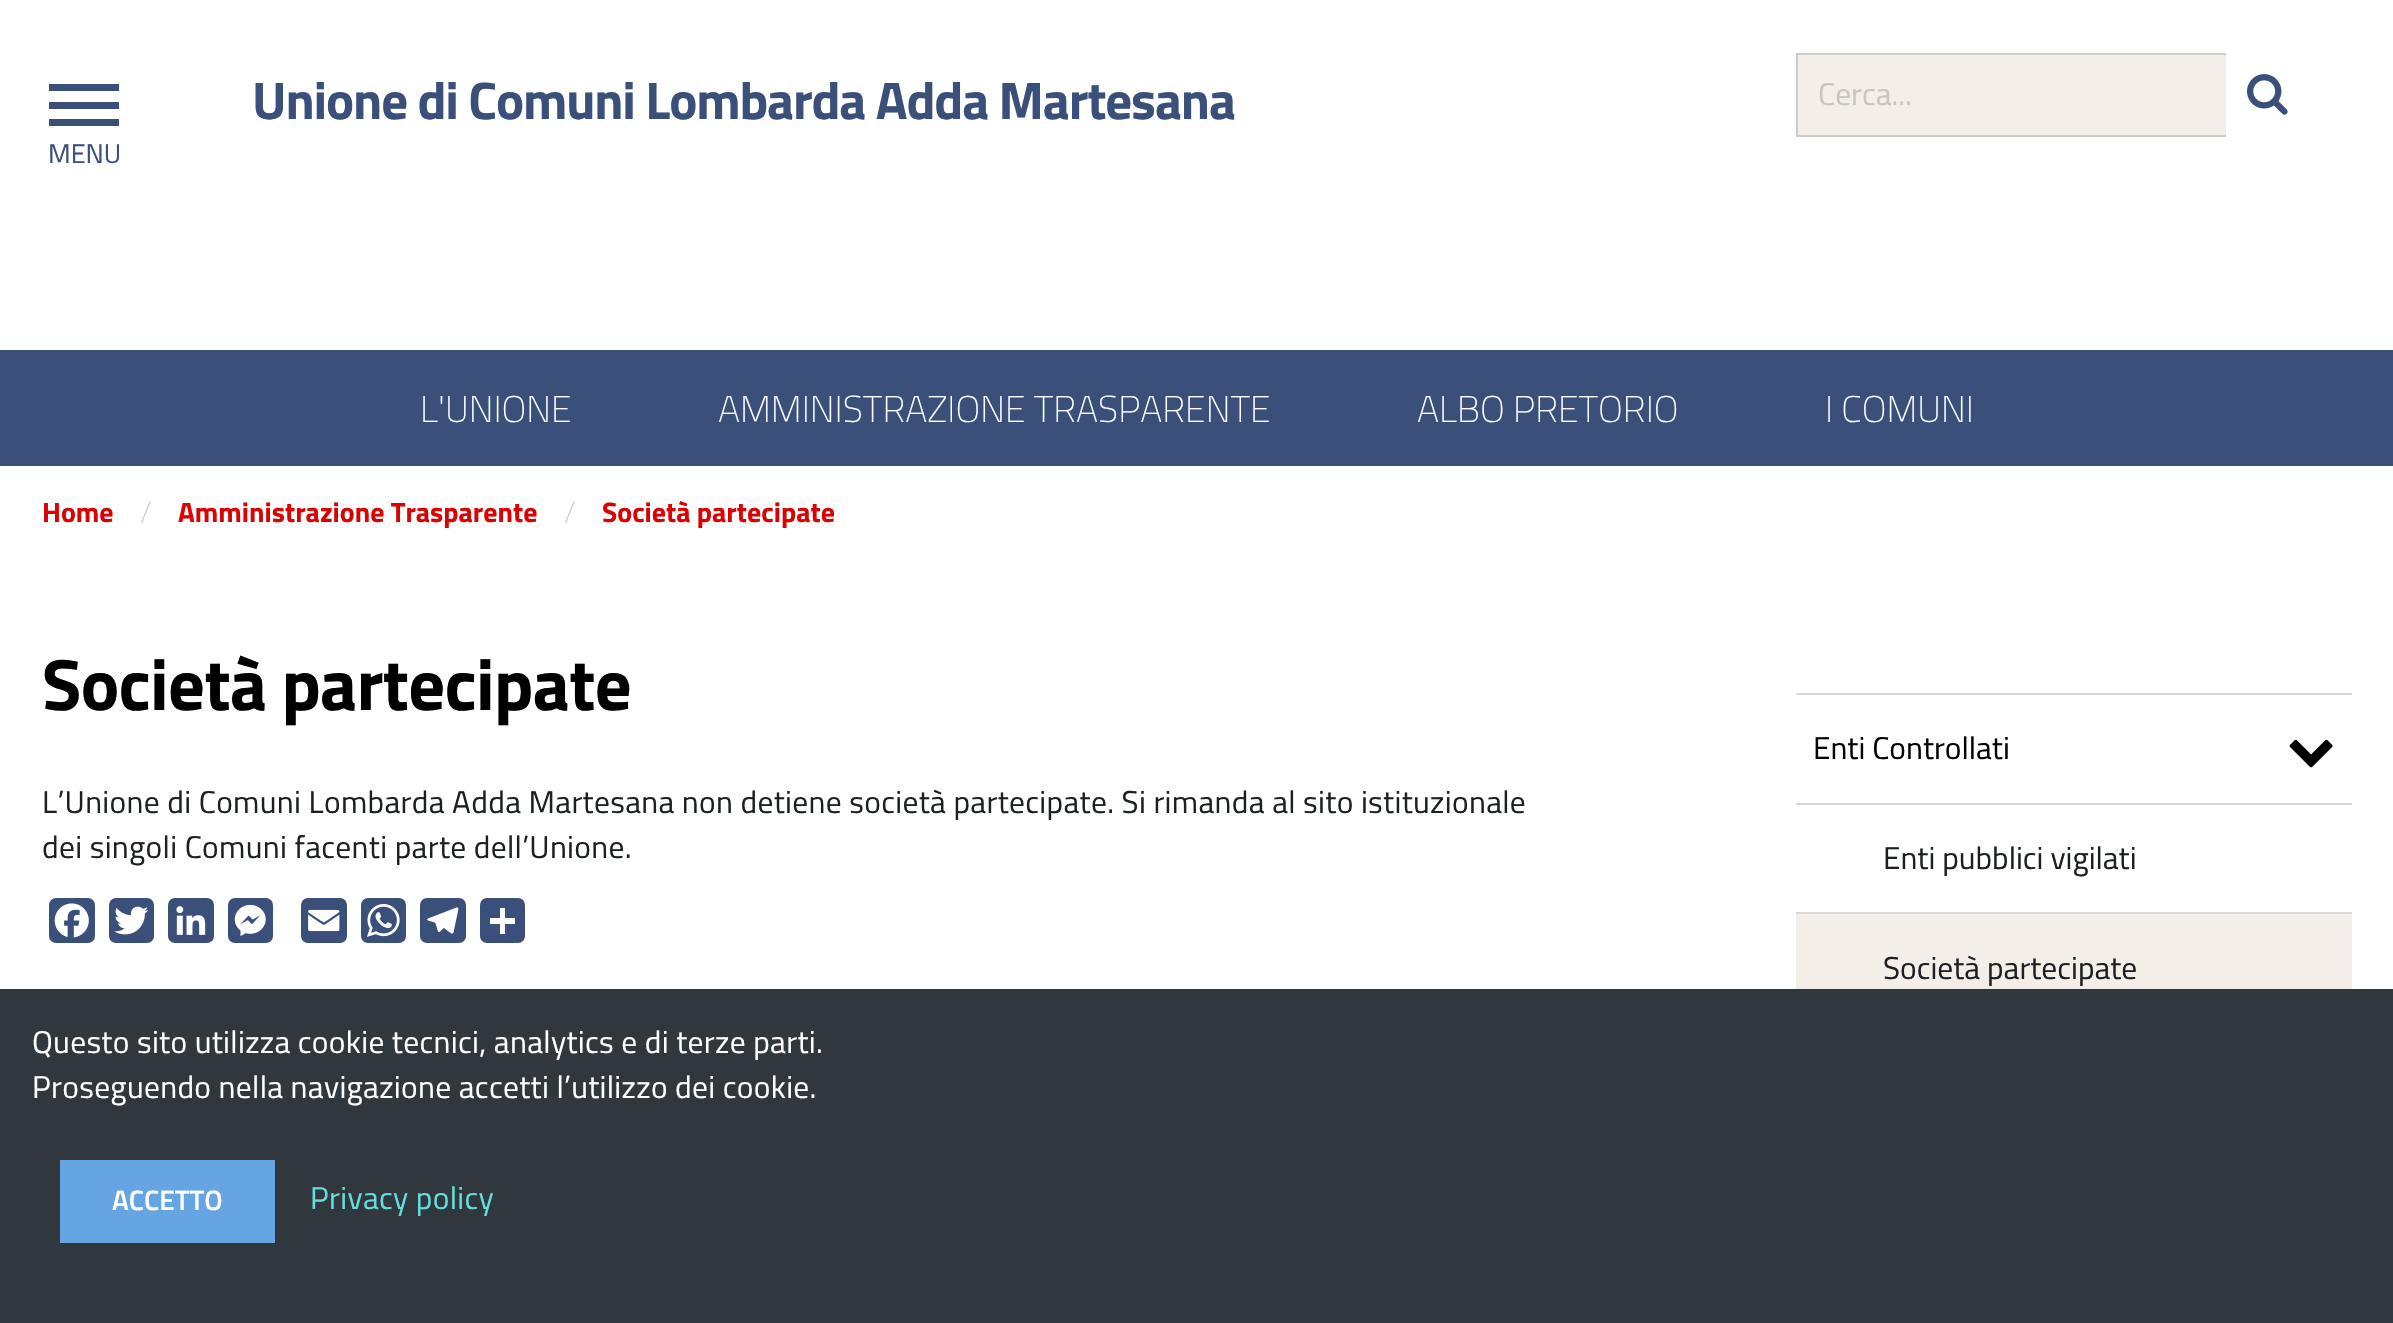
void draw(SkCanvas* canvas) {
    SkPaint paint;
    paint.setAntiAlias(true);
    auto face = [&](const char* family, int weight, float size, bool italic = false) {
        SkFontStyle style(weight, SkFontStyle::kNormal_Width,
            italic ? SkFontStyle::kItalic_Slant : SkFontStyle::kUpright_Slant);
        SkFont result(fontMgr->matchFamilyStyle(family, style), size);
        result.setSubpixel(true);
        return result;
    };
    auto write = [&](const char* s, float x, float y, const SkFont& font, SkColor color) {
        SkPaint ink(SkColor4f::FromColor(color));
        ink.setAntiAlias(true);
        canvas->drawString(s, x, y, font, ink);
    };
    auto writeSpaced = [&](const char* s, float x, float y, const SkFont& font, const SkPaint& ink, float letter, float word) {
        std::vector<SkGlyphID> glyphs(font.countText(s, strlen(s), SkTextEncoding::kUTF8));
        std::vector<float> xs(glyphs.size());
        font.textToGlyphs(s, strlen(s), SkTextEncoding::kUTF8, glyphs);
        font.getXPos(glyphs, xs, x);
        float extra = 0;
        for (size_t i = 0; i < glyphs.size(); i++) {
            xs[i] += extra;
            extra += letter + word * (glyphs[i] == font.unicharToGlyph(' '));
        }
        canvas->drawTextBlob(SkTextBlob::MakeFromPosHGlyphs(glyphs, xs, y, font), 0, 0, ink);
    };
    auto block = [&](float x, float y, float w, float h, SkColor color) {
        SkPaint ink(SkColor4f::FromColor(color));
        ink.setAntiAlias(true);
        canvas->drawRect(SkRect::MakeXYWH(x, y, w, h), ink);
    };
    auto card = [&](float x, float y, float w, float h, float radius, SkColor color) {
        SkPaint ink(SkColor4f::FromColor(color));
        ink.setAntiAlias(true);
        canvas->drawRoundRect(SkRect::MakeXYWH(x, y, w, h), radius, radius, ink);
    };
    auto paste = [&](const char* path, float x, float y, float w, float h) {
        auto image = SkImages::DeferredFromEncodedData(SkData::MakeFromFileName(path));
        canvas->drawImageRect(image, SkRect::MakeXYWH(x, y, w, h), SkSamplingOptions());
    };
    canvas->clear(SK_ColorWHITE);
    auto kFont1 = face("Titillium Web", 700, 52.9f);
    paint.setColor(SkColorSetRGB(58, 80, 123));
    writeSpaced("Unione di Comuni Lombarda Adda Martesana", 252, 119, kFont1, paint, -1.15f, 0);
    block(1798, 55, 428, 80, SkColorSetRGB(244, 238, 233));
    paint.setStyle(SkPaint::kStroke_Style);
    paint.setStrokeWidth(2);
    paint.setColor(SkColorSetRGB(204, 204, 204));
    canvas->drawRect(SkRect::MakeXYWH(1797, 54, 512, 82), paint);
    auto kFont2 = face("Titillium Web", 400, 31.5f);
    write("Cerca...", 1818, 105, kFont2, SkColorSetRGB(199, 196, 193));
    block(2226, 53, 84, 84, SK_ColorWHITE);
    paste("pic1.png", 2247, 74, 41, 41);
    block(49, 84, 70, 7, SkColorSetRGB(58, 80, 123));
    block(49, 102, 70, 7, SkColorSetRGB(58, 80, 123));
    block(49, 119, 70, 7, SkColorSetRGB(58, 80, 123));
    auto kFont3 = face("Titillium Web", 400, 27);
    write("MENU", 48, 163, kFont3, SkColorSetRGB(58, 80, 123));
    block(0, 350, 2393, 116, SkColorSetRGB(58, 80, 123));
    auto kFont4 = face("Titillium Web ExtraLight", 200, 37.2f);
    write("L'UNIONE", 420, 422, kFont4, SK_ColorWHITE);
    write("AMMINISTRAZIONE TRASPARENTE", 718, 422, kFont4, SK_ColorWHITE);
    write("ALBO PRETORIO", 1417, 422, kFont4, SK_ColorWHITE);
    write("I COMUNI", 1825, 422, kFont4, SK_ColorWHITE);
    auto kFont5 = face("Titillium Web", 700, 28);
    write("Home", 42, 522, kFont5, SkColorSetRGB(221, 2, 2));
    auto kFont6 = face("Titillium Web ExtraLight", 200, 31.5f);
    write("/", 140, 523, kFont6, SkColorSetRGB(204, 204, 204));
    write("Amministrazione Trasparente", 178, 522, kFont5, SkColorSetRGB(221, 2, 2));
    write("/", 564, 523, kFont6, SkColorSetRGB(204, 204, 204));
    write("Società partecipate", 602, 522, kFont5, SkColorSetRGB(221, 2, 2));
    auto kFont7 = face("Titillium Web", 700, 72.5f);
    paint.setStyle(SkPaint::kFill_Style);
    paint.setColor(SK_ColorBLACK);
    writeSpaced("Società partecipate", 42, 710, kFont7, paint, -0.75f, 0);
    paint.setColor(SkColorSetRGB(28, 32, 36));
    writeSpaced("L’Unione di Comuni Lombarda Adda Martesana non detiene società partecipate. Si rimanda al sito istituzionale", 42, 813, kFont2, paint, 0.32f, 0);
    writeSpaced("dei singoli Comuni facenti parte dell’Unione.", 42, 858, kFont2, paint, 0.32f, 0);
    card(49, 898, 46, 45, 7, SkColorSetRGB(58, 80, 122));
    paste("pic2.png", 54, 903, 35, 35);
    card(109, 898, 45, 45, 7, SkColorSetRGB(58, 80, 122));
    paste("pic3.png", 114, 906, 35, 29);
    card(168, 898, 46, 45, 7, SkColorSetRGB(58, 80, 122));
    paste("pic4.png", 176, 906, 30, 29);
    card(228, 898, 45, 45, 7, SkColorSetRGB(58, 80, 122));
    paste("pic5.png", 234, 904, 32, 32);
    card(301, 898, 46, 45, 7, SkColorSetRGB(58, 80, 122));
    paste("pic6.png", 308, 909, 32, 23);
    card(361, 898, 45, 45, 7, SkColorSetRGB(58, 80, 122));
    paste("pic7.png", 367, 904, 33, 33);
    card(420, 898, 46, 45, 7, SkColorSetRGB(58, 80, 122));
    paste("pic8.png", 427, 907, 32, 27);
    card(480, 898, 45, 45, 7, SkColorSetRGB(58, 80, 122));
    block(500, 908, 5, 26, SK_ColorWHITE);
    block(490, 918, 25, 6, SK_ColorWHITE);
    block(1796, 693, 556, 2, SkColorSetRGB(216, 216, 216));
    write("Enti Controllati", 1813, 759, kFont2, SK_ColorBLACK);
    paste("pic9.png", 2289, 739, 44, 29);
    block(1796, 803, 556, 2, SkColorSetRGB(216, 216, 216));
    block(1796, 912, 556, 2, SkColorSetRGB(216, 216, 216));
    write("Enti pubblici vigilati", 1883, 869, kFont2, SkColorSetRGB(28, 32, 36));
    block(1796, 914, 556, 75, SkColorSetRGB(244, 238, 233));
    write("Società partecipate", 1883, 979, kFont2, SkColorSetRGB(28, 32, 36));
    block(0, 989, 2393, 334, SkColorSetRGB(48, 55, 61));
    paint.setColor(SK_ColorWHITE);
    writeSpaced("Questo sito utilizza cookie tecnici, analytics e di terze parti.", 32, 1053, kFont2, paint, 0.32f, 0);
    writeSpaced("Proseguendo nella navigazione accetti l’utilizzo dei cookie.", 32, 1098, kFont2, paint, 0.32f, 0);
    block(60, 1160, 215, 83, SkColorSetRGB(102, 165, 227));
    auto kFont8 = face("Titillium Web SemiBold", 600, 28);
    write("ACCETTO", 112, 1210, kFont8, SK_ColorWHITE);
    paint.setColor(SkColorSetRGB(101, 221, 224));
    writeSpaced("Privacy policy", 310, 1209, kFont2, paint, 0.32f, 0);
}
